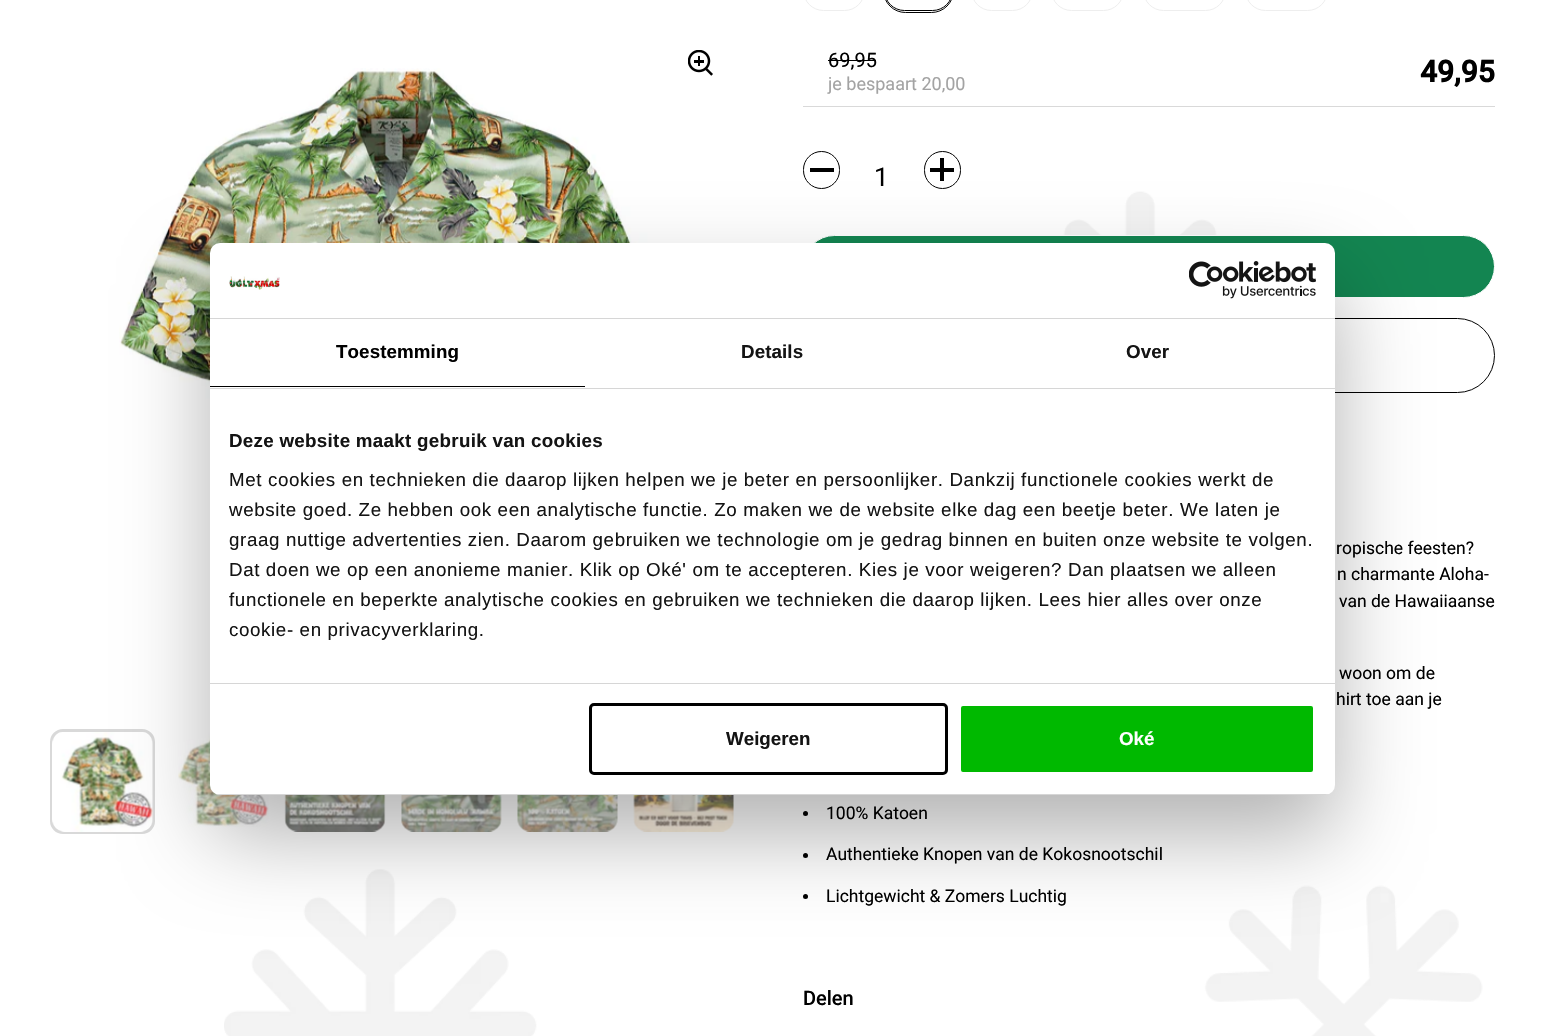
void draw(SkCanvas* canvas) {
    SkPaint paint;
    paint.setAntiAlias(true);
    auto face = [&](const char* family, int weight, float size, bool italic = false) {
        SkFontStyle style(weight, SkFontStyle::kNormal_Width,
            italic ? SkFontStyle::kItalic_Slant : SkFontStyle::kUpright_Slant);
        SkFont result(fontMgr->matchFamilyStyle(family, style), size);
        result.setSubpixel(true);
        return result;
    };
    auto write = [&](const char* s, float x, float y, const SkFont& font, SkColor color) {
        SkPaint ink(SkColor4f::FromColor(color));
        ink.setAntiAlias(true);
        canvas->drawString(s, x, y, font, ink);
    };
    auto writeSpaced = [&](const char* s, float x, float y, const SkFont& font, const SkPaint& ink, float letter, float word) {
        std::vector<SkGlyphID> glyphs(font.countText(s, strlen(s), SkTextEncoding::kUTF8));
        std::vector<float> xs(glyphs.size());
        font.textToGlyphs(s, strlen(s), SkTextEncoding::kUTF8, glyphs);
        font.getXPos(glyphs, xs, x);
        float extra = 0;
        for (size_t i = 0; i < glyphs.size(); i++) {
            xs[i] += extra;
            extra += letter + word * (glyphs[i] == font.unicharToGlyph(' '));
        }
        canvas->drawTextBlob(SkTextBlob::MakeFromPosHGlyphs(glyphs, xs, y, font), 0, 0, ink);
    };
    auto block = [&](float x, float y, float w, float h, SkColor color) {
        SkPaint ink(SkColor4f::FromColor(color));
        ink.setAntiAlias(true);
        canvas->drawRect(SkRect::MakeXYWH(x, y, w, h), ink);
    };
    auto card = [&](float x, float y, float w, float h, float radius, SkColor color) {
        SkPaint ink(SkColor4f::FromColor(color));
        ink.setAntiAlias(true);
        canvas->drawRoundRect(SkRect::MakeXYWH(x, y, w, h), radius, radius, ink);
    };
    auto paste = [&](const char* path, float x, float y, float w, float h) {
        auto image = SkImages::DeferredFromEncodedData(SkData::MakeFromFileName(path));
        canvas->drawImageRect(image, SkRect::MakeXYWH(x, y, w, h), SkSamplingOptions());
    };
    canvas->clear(SK_ColorWHITE);
    paste("pic1.png", 224, 191, 1259, 845);
    paste("pic3.png", 119, 68, 623, 611);
    paste("pic2.png", 688, 50, 25, 26);
    paint.setStyle(SkPaint::kStroke_Style);
    paint.setStrokeWidth(3);
    paint.setColor(SkColorSetRGB(217, 217, 217));
    canvas->drawRoundRect(SkRect::MakeXYWH(51.5f, 730.5f, 102, 102), 11.5f, 11.5f, paint);
    paste("pic4.png", 52, 732, 101, 100);
    paste("pic5.png", 178, 732, 91, 95);
    paste("pic6.png", 284, 795, 102, 37);
    paste("pic7.png", 401, 795, 101, 37);
    paste("pic8.png", 517, 795, 101, 37);
    paste("pic9.png", 633, 795, 101, 37);
    paint.setStrokeWidth(1);
    paint.setColor(SkColorSetRGB(238, 238, 238));
    canvas->drawRoundRect(SkRect::MakeXYWH(803.5f, -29.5f, 61, 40), 28.5f, 28.5f, paint);
    paint.setColor(SK_ColorBLACK);
    canvas->drawRoundRect(SkRect::MakeXYWH(883.5f, -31.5f, 70, 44), 30.5f, 30.5f, paint);
    canvas->drawRoundRect(SkRect::MakeXYWH(884.5f, -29.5f, 68, 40), 28.5f, 28.5f, paint);
    paint.setColor(SkColorSetRGB(238, 238, 238));
    canvas->drawRoundRect(SkRect::MakeXYWH(971.5f, -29.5f, 61, 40), 28.5f, 28.5f, paint);
    canvas->drawRoundRect(SkRect::MakeXYWH(1051.5f, -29.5f, 72, 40), 28.5f, 28.5f, paint);
    canvas->drawRoundRect(SkRect::MakeXYWH(1143.5f, -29.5f, 82, 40), 28.5f, 28.5f, paint);
    canvas->drawRoundRect(SkRect::MakeXYWH(1245.5f, -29.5f, 82, 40), 28.5f, 28.5f, paint);
    auto kFont1 = face("Roboto", 400, 20);
    write("69,95", 828, 67, kFont1, SK_ColorBLACK);
    block(828, 60, 48, 1, SK_ColorBLACK);
    auto kFont2 = face("Roboto", 400, 18);
    write("je bespaart 20,00", 828, 90, kFont2, SkColorSetRGB(163, 163, 163));
    auto kFont3 = face("Roboto", 700, 30);
    write("49,95", 1420, 82, kFont3, SK_ColorBLACK);
    block(803, 106, 692, 1, SkColorSetRGB(217, 217, 217));
    paint.setColor(SK_ColorBLACK);
    canvas->drawRoundRect(SkRect::MakeXYWH(803.5f, 151.5f, 36, 37), 18, 18, paint);
    block(810, 168, 24, 4, SK_ColorBLACK);
    auto kFont4 = face("Roboto", 400, 26);
    write("1", 874, 186, kFont4, SK_ColorBLACK);
    canvas->drawRoundRect(SkRect::MakeXYWH(924.5f, 151.5f, 36, 37), 18, 18, paint);
    block(940, 158, 4, 23, SK_ColorBLACK);
    block(930, 168, 24, 4, SK_ColorBLACK);
    paint.setStyle(SkPaint::kFill_Style);
    paint.setColor(SkColorSetRGB(19, 133, 81));
    canvas->drawRoundRect(SkRect::MakeXYWH(803.5f, 235.5f, 691, 62), 31, 31, paint);
    paint.setStyle(SkPaint::kStroke_Style);
    paint.setColor(SK_ColorWHITE);
    canvas->drawRoundRect(SkRect::MakeXYWH(803.5f, 235.5f, 691, 62), 31, 31, paint);
    paint.setStyle(SkPaint::kFill_Style);
    canvas->drawRoundRect(SkRect::MakeXYWH(803.5f, 318.5f, 691, 74), 37, 37, paint);
    paint.setStyle(SkPaint::kStroke_Style);
    paint.setColor(SK_ColorBLACK);
    canvas->drawRoundRect(SkRect::MakeXYWH(803.5f, 318.5f, 691, 74), 37, 37, paint);
    auto kFont5 = face("Roboto", 400, 17.5f);
    write("ropische feesten?", 1336, 554, kFont5, SK_ColorBLACK);
    write("n charmante Aloha-", 1337, 580, kFont5, SK_ColorBLACK);
    write("van de Hawaiiaanse", 1339, 607, kFont5, SK_ColorBLACK);
    write("woon om de", 1339, 679, kFont5, SK_ColorBLACK);
    write("hirt toe aan je", 1336, 705, kFont5, SK_ColorBLACK);
    paint.setStyle(SkPaint::kFill_Style);
    canvas->drawCircle(805.5f, 813.5f, 2.5f, paint);
    write("100% Katoen", 826, 819, kFont5, SK_ColorBLACK);
    canvas->drawCircle(805.5f, 855.5f, 2.5f, paint);
    write("Authentieke Knopen van de Kokosnootschil", 826, 860, kFont5, SK_ColorBLACK);
    canvas->drawCircle(805.5f, 896.5f, 2.5f, paint);
    write("Lichtgewicht & Zomers Luchtig", 826, 902, kFont5, SK_ColorBLACK);
    auto kFont6 = face("Roboto", 500, 20);
    write("Delen", 803, 1005, kFont6, SK_ColorBLACK);
    paint.setColor(SkColorSetARGB(77, 0, 0, 0));
    paint.setMaskFilter(SkMaskFilter::MakeBlur(kNormal_SkBlurStyle, 42.5f));
    canvas->drawRoundRect(SkRect::MakeXYWH(210, 283, 1125, 552), 10, 10, paint);
    paint.setMaskFilter(nullptr);
    card(210, 243, 1125, 552, 10, SK_ColorWHITE);
    block(210, 318, 1125, 1, SkColorSetRGB(214, 214, 214));
    paste("pic10.png", 229, 276, 51, 14);
    paste("pic11.png", 1189, 261, 127, 38);
    block(210, 388, 1125, 1, SkColorSetRGB(214, 214, 214));
    block(210, 386, 375, 1, SK_ColorBLACK);
    auto kFont7 = face("Liberation Sans", 700, 18.75f);
    paint.setColor(SK_ColorBLACK);
    writeSpaced("Toestemming", 336, 358, kFont7, paint, 0.1f, 0);
    paint.setColor(SkColorSetRGB(20, 20, 20));
    writeSpaced("Details", 741, 358, kFont7, paint, 0.1f, 0);
    writeSpaced("Over", 1126, 358, kFont7, paint, 0.1f, 0);
    block(210, 683, 1125, 1, SkColorSetRGB(214, 214, 214));
    writeSpaced("Deze website maakt gebruik van cookies", 229, 447, kFont7, paint, 0.3f, 0);
    auto kFont8 = face("Liberation Sans", 400, 18.75f);
    writeSpaced("Met cookies en technieken die daarop lijken helpen we je beter en persoonlijker. Dankzij functionele cookies werkt de", 229, 486, kFont8, paint, 0.62f, 0);
    writeSpaced("website goed. Ze hebben ook een analytische functie. Zo maken we de website elke dag een beetje beter. We laten je", 229, 516, kFont8, paint, 0.62f, 0);
    writeSpaced("graag nuttige advertenties zien. Daarom gebruiken we technologie om je gedrag binnen en buiten onze website te volgen.", 229, 546, kFont8, paint, 0.62f, 0);
    writeSpaced("Dat doen we op een anonieme manier. Klik op Oké' om te accepteren. Kies je voor weigeren? Dan plaatsen we alleen", 229, 576, kFont8, paint, 0.62f, 0);
    writeSpaced("functionele en beperkte analytische cookies en gebruiken we technieken die daarop lijken. Lees hier alles over onze", 229, 606, kFont8, paint, 0.62f, 0);
    writeSpaced("cookie- en privacyverklaring.", 229, 636, kFont8, paint, 0.62f, 0);
    canvas->save();
    canvas->clipPath(SkPathBuilder().moveTo(220, 243).lineTo(1325, 243).cubicTo(1330.5f, 243, 1335, 247.5f, 1335, 253).lineTo(1335, 785).cubicTo(1335, 790.5f, 1330.5f, 795, 1325, 795).lineTo(220, 795).cubicTo(214.5f, 795, 210, 790.5f, 210, 785).lineTo(210, 253).cubicTo(210, 247.5f, 214.5f, 243, 220, 243).close().detach(), true);
    block(210, 794, 1125, 1, SkColorSetRGB(214, 214, 214));
    canvas->restore();
    paint.setStyle(SkPaint::kStroke_Style);
    paint.setStrokeWidth(3);
    paint.setColor(SK_ColorBLACK);
    canvas->drawRoundRect(SkRect::MakeXYWH(590.5f, 704.5f, 356, 69), 3.5f, 3.5f, paint);
    write("Weigeren", 726, 745, kFont7, SkColorSetRGB(20, 20, 20));
    paint.setStyle(SkPaint::kFill_Style);
    paint.setColor(SkColorSetRGB(0, 185, 0));
    canvas->drawRoundRect(SkRect::MakeXYWH(959.5f, 704.5f, 355, 69), 3.5f, 3.5f, paint);
    paint.setStyle(SkPaint::kStroke_Style);
    paint.setColor(SK_ColorWHITE);
    canvas->drawRoundRect(SkRect::MakeXYWH(959.5f, 704.5f, 355, 69), 3.5f, 3.5f, paint);
    write("Oké", 1119, 745, kFont7, SK_ColorWHITE);
}
